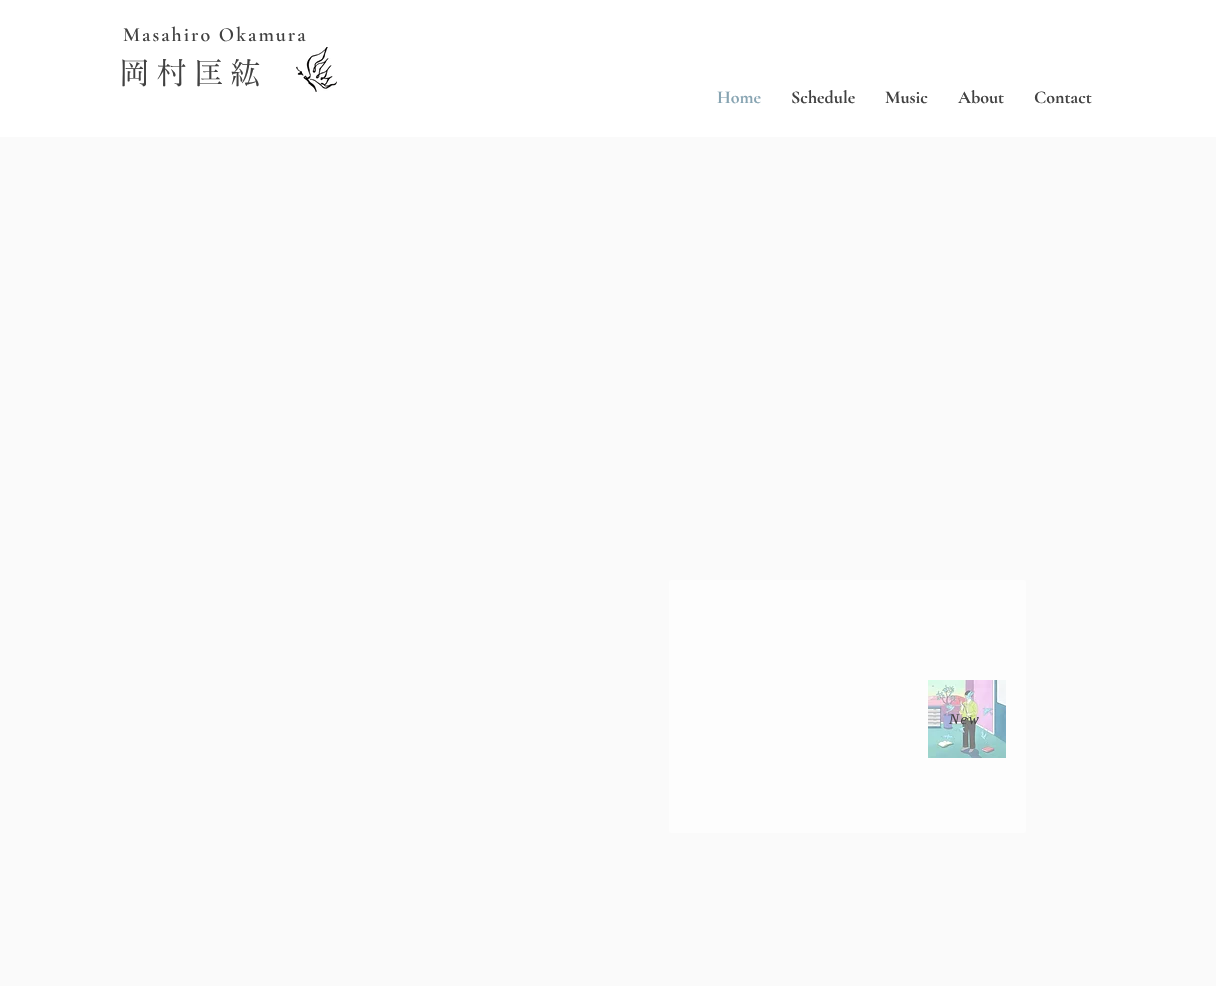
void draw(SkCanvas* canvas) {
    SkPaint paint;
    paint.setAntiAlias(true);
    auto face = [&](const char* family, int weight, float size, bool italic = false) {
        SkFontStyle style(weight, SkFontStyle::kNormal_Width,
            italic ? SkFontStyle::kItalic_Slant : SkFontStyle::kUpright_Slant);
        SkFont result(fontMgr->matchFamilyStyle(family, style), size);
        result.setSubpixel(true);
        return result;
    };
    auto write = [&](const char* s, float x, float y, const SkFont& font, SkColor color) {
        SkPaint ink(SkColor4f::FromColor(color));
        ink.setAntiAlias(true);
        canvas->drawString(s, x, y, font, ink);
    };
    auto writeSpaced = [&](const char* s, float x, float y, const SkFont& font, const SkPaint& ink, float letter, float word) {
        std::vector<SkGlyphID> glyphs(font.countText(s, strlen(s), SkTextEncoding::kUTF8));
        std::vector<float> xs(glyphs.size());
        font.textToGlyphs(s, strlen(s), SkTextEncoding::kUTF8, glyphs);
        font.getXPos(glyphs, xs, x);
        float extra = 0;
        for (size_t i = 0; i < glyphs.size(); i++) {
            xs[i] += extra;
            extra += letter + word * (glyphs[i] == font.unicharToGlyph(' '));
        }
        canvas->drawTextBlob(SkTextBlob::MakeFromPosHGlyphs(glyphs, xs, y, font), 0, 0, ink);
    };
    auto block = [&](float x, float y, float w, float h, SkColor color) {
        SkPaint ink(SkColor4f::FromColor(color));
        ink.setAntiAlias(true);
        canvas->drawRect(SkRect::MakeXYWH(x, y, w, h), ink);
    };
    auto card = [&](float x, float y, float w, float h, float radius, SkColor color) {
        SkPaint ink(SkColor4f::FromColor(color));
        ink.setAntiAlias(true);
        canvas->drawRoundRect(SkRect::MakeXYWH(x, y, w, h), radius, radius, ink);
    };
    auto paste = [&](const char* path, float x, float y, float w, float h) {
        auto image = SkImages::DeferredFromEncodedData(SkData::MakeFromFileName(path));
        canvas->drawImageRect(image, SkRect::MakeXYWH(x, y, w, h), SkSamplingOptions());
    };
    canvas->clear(SK_ColorWHITE);
    auto kFont1 = face("Cormorant Garamond", 600, 20);
    paint.setColor(SkColorSetRGB(65, 65, 65));
    writeSpaced("Masahiro Okamura", 123, 41, kFont1, paint, 2, 0);
    auto kFont2 = face("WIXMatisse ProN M", 500, 31);
    writeSpaced("岡村匡紘", 119, 84, kFont2, paint, 6, 0);
    paste("pic1.png", 296, 47, 41, 45);
    auto kFont3 = face("Cormorant Garamond", 700, 18);
    write("Home", 717, 103, kFont3, SkColorSetRGB(135, 164, 178));
    write("Schedule", 791, 103, kFont3, SkColorSetRGB(65, 65, 65));
    write("Music", 885, 103, kFont3, SkColorSetRGB(65, 65, 65));
    write("About", 958, 103, kFont3, SkColorSetRGB(65, 65, 65));
    write("Contact", 1034, 103, kFont3, SkColorSetRGB(65, 65, 65));
    block(0, 137, 1216, 849, SkColorSetRGB(250, 250, 250));
    card(669, 580, 357, 253, 2, SkColorSetRGB(253, 253, 253));
    paste("pic2.png", 928, 680, 78, 78);
    auto kFont4 = face("Liberation Serif", 400, 15, true);
    writeSpaced("New", 949, 724, kFont4, paint, 1.5f, 0);
}
